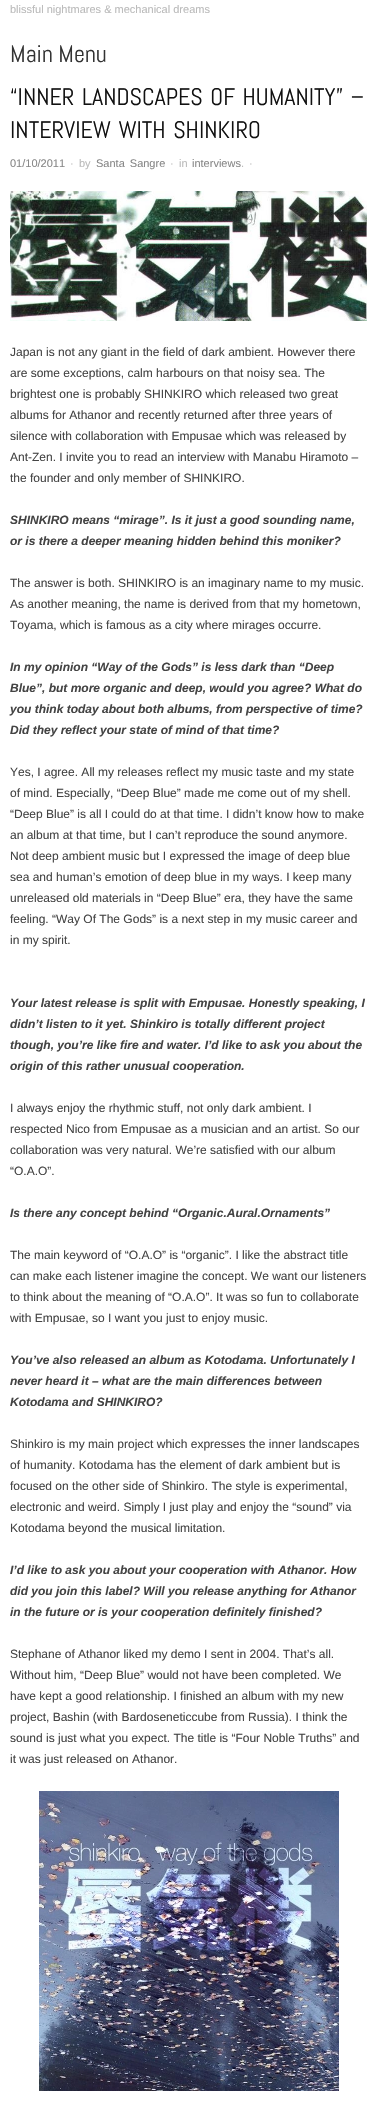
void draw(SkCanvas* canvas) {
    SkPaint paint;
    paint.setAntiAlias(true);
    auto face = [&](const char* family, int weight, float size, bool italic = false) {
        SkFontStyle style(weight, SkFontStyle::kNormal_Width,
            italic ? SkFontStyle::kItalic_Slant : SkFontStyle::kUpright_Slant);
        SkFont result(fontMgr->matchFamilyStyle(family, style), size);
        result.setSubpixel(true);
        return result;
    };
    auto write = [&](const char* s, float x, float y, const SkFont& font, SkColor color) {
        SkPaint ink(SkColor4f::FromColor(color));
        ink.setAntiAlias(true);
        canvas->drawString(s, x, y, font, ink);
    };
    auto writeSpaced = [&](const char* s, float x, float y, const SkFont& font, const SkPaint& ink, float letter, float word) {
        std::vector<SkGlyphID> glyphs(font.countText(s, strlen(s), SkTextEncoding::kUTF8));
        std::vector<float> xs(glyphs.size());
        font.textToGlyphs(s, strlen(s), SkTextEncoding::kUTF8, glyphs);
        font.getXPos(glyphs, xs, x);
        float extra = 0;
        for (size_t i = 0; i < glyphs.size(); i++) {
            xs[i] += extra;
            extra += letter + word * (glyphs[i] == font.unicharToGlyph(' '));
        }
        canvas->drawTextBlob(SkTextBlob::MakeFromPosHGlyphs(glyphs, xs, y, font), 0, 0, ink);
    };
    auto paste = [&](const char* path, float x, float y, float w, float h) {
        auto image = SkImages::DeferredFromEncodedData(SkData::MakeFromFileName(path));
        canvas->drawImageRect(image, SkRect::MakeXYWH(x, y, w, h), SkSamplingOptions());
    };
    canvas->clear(SK_ColorWHITE);
    auto kFont1 = face("Liberation Sans", 400, 11);
    write("blissful nightmares & mechanical dreams", 10, 13, kFont1, SkColorSetRGB(187, 187, 187));
    auto kFont2 = face("Abel", 400, 24);
    write("Main Menu", 10, 62, kFont2, SkColorSetRGB(51, 51, 51));
    paint.setColor(SkColorSetRGB(17, 17, 17));
    writeSpaced("“INNER LANDSCAPES OF HUMANITY” –", 10, 105, kFont2, paint, 0, 2);
    writeSpaced("INTERVIEW WITH SHINKIRO", 10, 138, kFont2, paint, 0, 2);
    write("01/10/2011", 10, 167, kFont1, SkColorSetRGB(136, 136, 136));
    write("·", 70, 167, kFont1, SkColorSetRGB(187, 187, 187));
    write("by", 79, 167, kFont1, SkColorSetRGB(187, 187, 187));
    paint.setColor(SkColorSetRGB(136, 136, 136));
    writeSpaced("Santa Sangre", 96, 167, kFont1, paint, 0, 2);
    write("·", 170, 167, kFont1, SkColorSetRGB(187, 187, 187));
    write("in", 179, 167, kFont1, SkColorSetRGB(187, 187, 187));
    write("interviews", 192, 167, kFont1, SkColorSetRGB(136, 136, 136));
    write("·", 249, 167, kFont1, SkColorSetRGB(187, 187, 187));
    write(".", 241, 167, kFont1, SkColorSetRGB(187, 187, 187));
    paste("pic1.png", 10, 191, 357, 130);
    auto kFont3 = face("Liberation Sans", 400, 12);
    write("Japan is not any giant in the field of dark ambient. However there", 10, 356, kFont3, SkColorSetRGB(68, 68, 68));
    write("are some exceptions, calm harbours on that noisy sea. The", 10, 377, kFont3, SkColorSetRGB(68, 68, 68));
    write("brightest one is probably SHINKIRO which released two great", 10, 398, kFont3, SkColorSetRGB(68, 68, 68));
    write("albums for Athanor and recently returned after three years of", 10, 419, kFont3, SkColorSetRGB(68, 68, 68));
    write("silence with collaboration with Empusae which was released by", 10, 440, kFont3, SkColorSetRGB(68, 68, 68));
    write("Ant-Zen. I invite you to read an interview with Manabu Hiramoto –", 10, 461, kFont3, SkColorSetRGB(68, 68, 68));
    write("the founder and only member of SHINKIRO.", 10, 482, kFont3, SkColorSetRGB(68, 68, 68));
    auto kFont4 = face("Liberation Sans", 700, 12, true);
    write("SHINKIRO means “mirage”. Is it just a good sounding name,", 10, 524, kFont4, SkColorSetRGB(68, 68, 68));
    write("or is there a deeper meaning hidden behind this moniker?", 10, 545, kFont4, SkColorSetRGB(68, 68, 68));
    write("The answer is both. SHINKIRO is an imaginary name to my music.", 10, 587, kFont3, SkColorSetRGB(68, 68, 68));
    write("As another meaning, the name is derived from that my hometown,", 10, 608, kFont3, SkColorSetRGB(68, 68, 68));
    write("Toyama, which is famous as a city where mirages occurre.", 10, 629, kFont3, SkColorSetRGB(68, 68, 68));
    write("In my opinion “Way of the Gods” is less dark than “Deep", 10, 671, kFont4, SkColorSetRGB(68, 68, 68));
    write("Blue”, but more organic and deep, would you agree? What do", 10, 692, kFont4, SkColorSetRGB(68, 68, 68));
    write("you think today about both albums, from perspective of time?", 10, 713, kFont4, SkColorSetRGB(68, 68, 68));
    write("Did they reflect your state of mind of that time?", 10, 734, kFont4, SkColorSetRGB(68, 68, 68));
    write("Yes, I agree. All my releases reflect my music taste and my state", 10, 776, kFont3, SkColorSetRGB(68, 68, 68));
    write("of mind. Especially, “Deep Blue” made me come out of my shell.", 10, 797, kFont3, SkColorSetRGB(68, 68, 68));
    write("“Deep Blue” is all I could do at that time. I didn’t know how to make", 10, 818, kFont3, SkColorSetRGB(68, 68, 68));
    write("an album at that time, but I can’t reproduce the sound anymore.", 10, 839, kFont3, SkColorSetRGB(68, 68, 68));
    write("Not deep ambient music but I expressed the image of deep blue", 10, 860, kFont3, SkColorSetRGB(68, 68, 68));
    write("sea and human’s emotion of deep blue in my ways. I keep many", 10, 881, kFont3, SkColorSetRGB(68, 68, 68));
    write("unreleased old materials in “Deep Blue” era, they have the same", 10, 902, kFont3, SkColorSetRGB(68, 68, 68));
    write("feeling. “Way Of The Gods” is a next step in my music career and", 10, 923, kFont3, SkColorSetRGB(68, 68, 68));
    write("in my spirit.", 10, 944, kFont3, SkColorSetRGB(68, 68, 68));
    write("Your latest release is split with Empusae. Honestly speaking, I", 10, 1007, kFont4, SkColorSetRGB(68, 68, 68));
    write("didn’t listen to it yet. Shinkiro is totally different project", 10, 1028, kFont4, SkColorSetRGB(68, 68, 68));
    write("though, you’re like fire and water. I’d like to ask you about the", 10, 1049, kFont4, SkColorSetRGB(68, 68, 68));
    write("origin of this rather unusual cooperation.", 10, 1070, kFont4, SkColorSetRGB(68, 68, 68));
    write("I always enjoy the rhythmic stuff, not only dark ambient. I", 10, 1112, kFont3, SkColorSetRGB(68, 68, 68));
    write("respected Nico from Empusae as a musician and an artist. So our", 10, 1133, kFont3, SkColorSetRGB(68, 68, 68));
    write("collaboration was very natural. We’re satisfied with our album", 10, 1154, kFont3, SkColorSetRGB(68, 68, 68));
    write("“O.A.O”.", 10, 1175, kFont3, SkColorSetRGB(68, 68, 68));
    write("Is there any concept behind “Organic.Aural.Ornaments”", 10, 1217, kFont4, SkColorSetRGB(68, 68, 68));
    write("The main keyword of “O.A.O” is “organic”. I like the abstract title", 10, 1259, kFont3, SkColorSetRGB(68, 68, 68));
    write("can make each listener imagine the concept. We want our listeners", 10, 1280, kFont3, SkColorSetRGB(68, 68, 68));
    write("to think about the meaning of “O.A.O”. It was so fun to collaborate", 10, 1301, kFont3, SkColorSetRGB(68, 68, 68));
    write("with Empusae, so I want you just to enjoy music.", 10, 1322, kFont3, SkColorSetRGB(68, 68, 68));
    write("You’ve also released an album as Kotodama. Unfortunately I", 10, 1364, kFont4, SkColorSetRGB(68, 68, 68));
    write("never heard it – what are the main differences between", 10, 1385, kFont4, SkColorSetRGB(68, 68, 68));
    write("Kotodama and SHINKIRO?", 10, 1406, kFont4, SkColorSetRGB(68, 68, 68));
    write("Shinkiro is my main project which expresses the inner landscapes", 10, 1448, kFont3, SkColorSetRGB(68, 68, 68));
    write("of humanity. Kotodama has the element of dark ambient but is", 10, 1469, kFont3, SkColorSetRGB(68, 68, 68));
    write("focused on the other side of Shinkiro. The style is experimental,", 10, 1490, kFont3, SkColorSetRGB(68, 68, 68));
    write("electronic and weird. Simply I just play and enjoy the “sound” via", 10, 1511, kFont3, SkColorSetRGB(68, 68, 68));
    write("Kotodama beyond the musical limitation.", 10, 1532, kFont3, SkColorSetRGB(68, 68, 68));
    write("I’d like to ask you about your cooperation with Athanor. How", 10, 1574, kFont4, SkColorSetRGB(68, 68, 68));
    write("did you join this label? Will you release anything for Athanor", 10, 1595, kFont4, SkColorSetRGB(68, 68, 68));
    write("in the future or is your cooperation definitely finished?", 10, 1616, kFont4, SkColorSetRGB(68, 68, 68));
    write("Stephane of Athanor liked my demo I sent in 2004. That’s all.", 10, 1658, kFont3, SkColorSetRGB(68, 68, 68));
    write("Without him, “Deep Blue” would not have been completed. We", 10, 1679, kFont3, SkColorSetRGB(68, 68, 68));
    write("have kept a good relationship. I finished an album with my new", 10, 1700, kFont3, SkColorSetRGB(68, 68, 68));
    write("project, Bashin (with Bardoseneticcube from Russia). I think the", 10, 1721, kFont3, SkColorSetRGB(68, 68, 68));
    write("sound is just what you expect. The title is “Four Noble Truths” and", 10, 1742, kFont3, SkColorSetRGB(68, 68, 68));
    write("it was just released on Athanor.", 10, 1763, kFont3, SkColorSetRGB(68, 68, 68));
    paste("pic2.png", 39, 1791, 300, 300);
}
